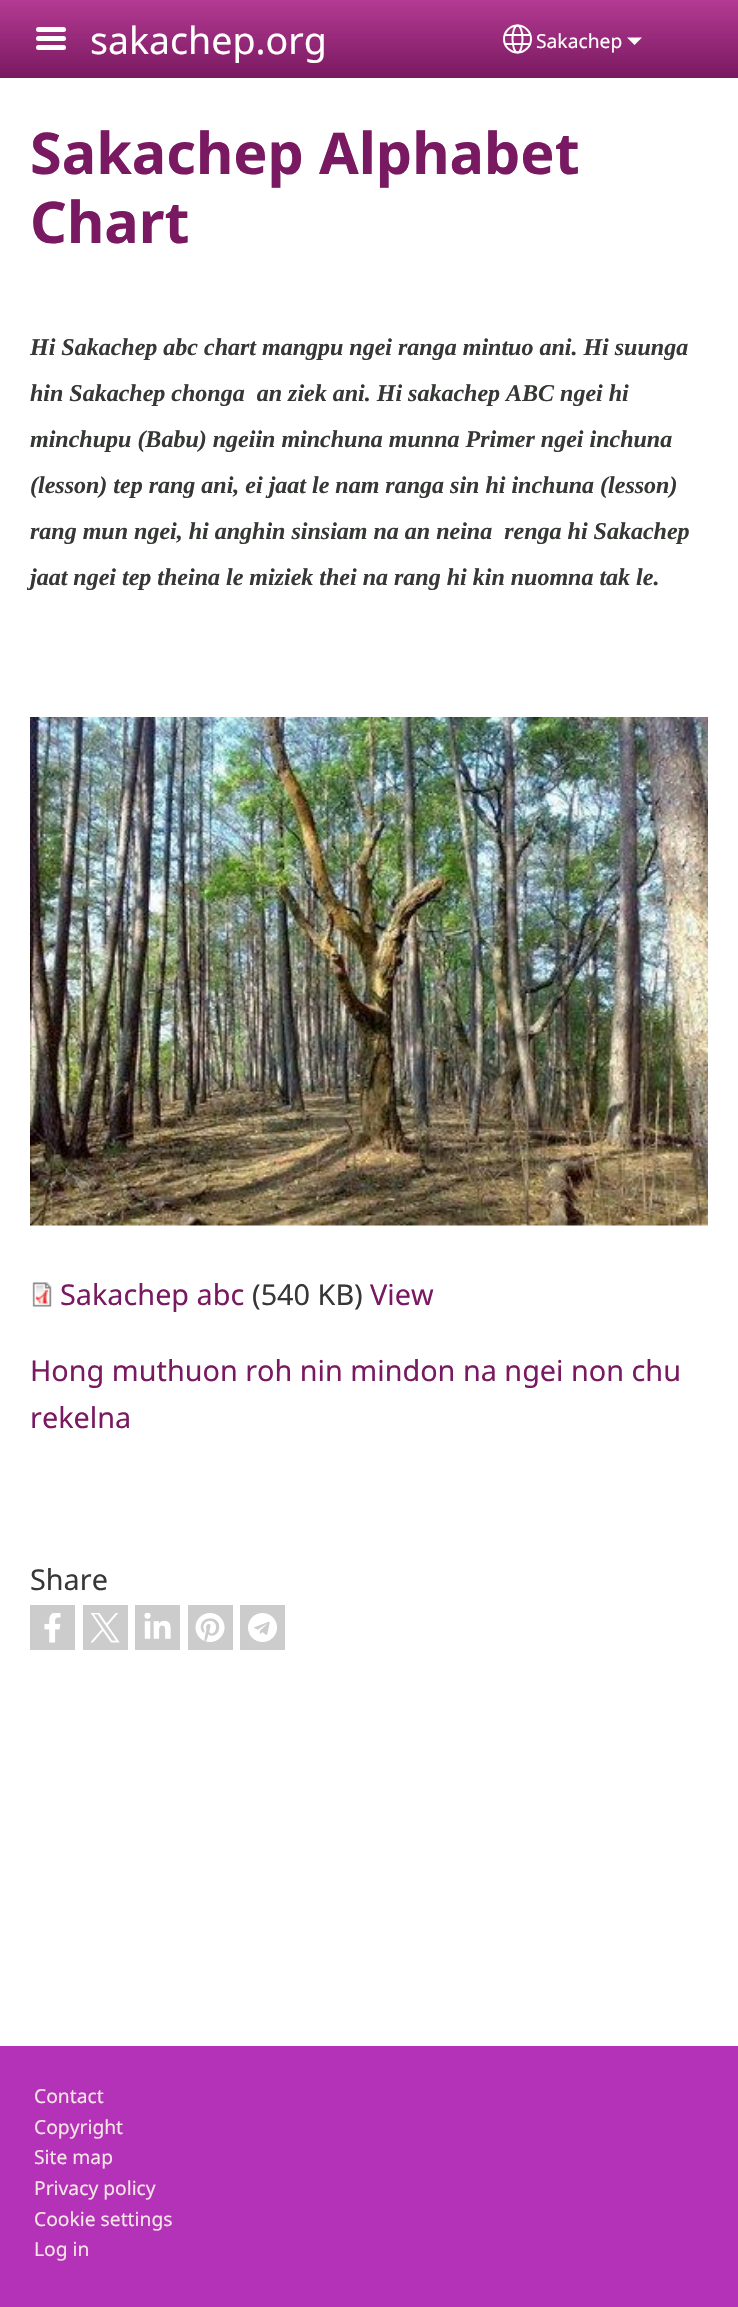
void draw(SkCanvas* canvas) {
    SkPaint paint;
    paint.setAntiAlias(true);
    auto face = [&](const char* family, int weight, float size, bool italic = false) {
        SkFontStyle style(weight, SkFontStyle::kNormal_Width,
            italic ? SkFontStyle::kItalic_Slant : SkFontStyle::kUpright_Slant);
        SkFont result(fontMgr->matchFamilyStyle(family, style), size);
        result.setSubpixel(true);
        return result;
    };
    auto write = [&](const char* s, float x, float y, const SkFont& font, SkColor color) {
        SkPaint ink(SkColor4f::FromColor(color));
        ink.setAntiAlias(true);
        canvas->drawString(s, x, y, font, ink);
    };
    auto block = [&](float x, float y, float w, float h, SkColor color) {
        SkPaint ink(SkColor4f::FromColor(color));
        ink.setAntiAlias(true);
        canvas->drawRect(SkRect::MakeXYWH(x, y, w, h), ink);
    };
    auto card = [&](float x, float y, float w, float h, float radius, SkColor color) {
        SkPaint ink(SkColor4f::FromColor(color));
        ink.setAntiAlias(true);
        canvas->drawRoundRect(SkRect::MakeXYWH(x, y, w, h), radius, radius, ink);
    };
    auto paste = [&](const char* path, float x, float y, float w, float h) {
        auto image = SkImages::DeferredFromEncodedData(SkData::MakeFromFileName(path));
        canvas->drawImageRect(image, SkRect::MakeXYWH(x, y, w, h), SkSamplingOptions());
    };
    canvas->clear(SK_ColorWHITE);
    {
        const SkColor colors[] = {SkColorSetRGB(180, 58, 147), SkColorSetRGB(121, 25, 96)};
        const float stops[] = {0, 1};
        const SkPoint ends[] = {{369, 0}, {369, 78}};
        paint.setShader(SkGradientShader::MakeLinear(ends, colors, stops, 2, SkTileMode::kClamp));
        paint.setAlpha(255);
    }
    canvas->drawRect(SkRect::MakeXYWH(0, 0, 738, 78), paint);
    card(36, 27, 30, 5, 2.5f, SkColorSetRGB(255, 255, 254));
    card(36, 36, 30, 5, 2.5f, SkColorSetRGB(255, 255, 254));
    card(36, 45, 30, 5, 2.5f, SkColorSetRGB(255, 255, 254));
    auto kFont1 = face("Noto Sans", 400, 37.5f);
    write("sakachep.org", 90, 54, kFont1, SkColorSetRGB(255, 255, 254));
    paint.setStyle(SkPaint::kStroke_Style);
    paint.setStrokeWidth(2);
    paint.setShader(nullptr);
    paint.setColor(SkColorSetRGB(255, 255, 254));
    canvas->drawCircle(517.5f, 39, 13.5f, paint);
    canvas->drawOval(SkRect::MakeXYWH(512.5f, 25.5f, 10, 27), paint);
    block(505, 34, 26, 2, SkColorSetRGB(255, 255, 254));
    block(505, 43, 26, 2, SkColorSetRGB(255, 255, 254));
    auto kFont2 = face("Noto Sans", 400, 19.25f);
    write("Sakachep", 536, 48, kFont2, SkColorSetRGB(255, 255, 254));
    paint.setStyle(SkPaint::kFill_Style);
    canvas->drawPath(SkPathBuilder().moveTo(627, 37.5f).lineTo(642, 37.5f).lineTo(634.5f, 45).close().detach(), paint);
    auto kFont3 = face("Noto Sans", 700, 57.5f);
    write("Sakachep Alphabet", 30, 174, kFont3, SkColorSetRGB(121, 25, 97));
    write("Chart", 30, 243, kFont3, SkColorSetRGB(121, 25, 97));
    auto kFont4 = face("Liberation Serif", 700, 24, true);
    write("Hi Sakachep abc chart mangpu ngei ranga mintuo ani. Hi suunga", 30, 355, kFont4, SkColorSetRGB(54, 56, 54));
    write("hin Sakachep chonga  an ziek ani. Hi sakachep ABC ngei hi", 30, 401, kFont4, SkColorSetRGB(54, 56, 54));
    write("minchupu (Babu) ngeiin minchuna munna Primer ngei inchuna", 30, 447, kFont4, SkColorSetRGB(54, 56, 54));
    write("(lesson) tep rang ani, ei jaat le nam ranga sin hi inchuna (lesson)", 30, 493, kFont4, SkColorSetRGB(54, 56, 54));
    write("rang mun ngei, hi anghin sinsiam na an neina  renga hi Sakachep", 30, 539, kFont4, SkColorSetRGB(54, 56, 54));
    write("jaat ngei tep theina le miziek thei na rang hi kin nuomna tak le.", 30, 585, kFont4, SkColorSetRGB(54, 56, 54));
    paste("pic1.png", 30, 717, 678, 509);
    paste("pic2.png", 32, 1282, 20, 25);
    auto kFont5 = face("Noto Sans", 400, 28.8f);
    write("Sakachep abc", 60, 1305, kFont5, SkColorSetRGB(121, 25, 97));
    write("(540 KB)", 252, 1305, kFont5, SkColorSetRGB(54, 56, 54));
    write("View", 370, 1305, kFont5, SkColorSetRGB(121, 25, 97));
    write("Hong muthuon roh nin mindon na ngei non chu", 30, 1381, kFont5, SkColorSetRGB(121, 25, 97));
    write("rekelna", 30, 1428, kFont5, SkColorSetRGB(121, 25, 97));
    write("Share", 30, 1590, kFont5, SkColorSetRGB(54, 56, 54));
    block(30, 1605, 45, 45, SkColorSetRGB(204, 204, 204));
    paste("pic3.png", 44, 1613, 17, 30);
    block(83, 1605, 45, 45, SkColorSetRGB(204, 204, 204));
    paste("pic4.png", 90, 1613, 30, 30);
    block(135, 1605, 45, 45, SkColorSetRGB(204, 204, 204));
    paste("pic5.png", 144, 1613, 27, 26);
    block(188, 1605, 45, 45, SkColorSetRGB(204, 204, 204));
    paste("pic6.png", 195, 1613, 30, 29);
    block(240, 1605, 45, 45, SkColorSetRGB(204, 204, 204));
    paste("pic7.png", 248, 1613, 29, 29);
    block(0, 2046, 738, 261, SkColorSetRGB(179, 50, 184));
    write("Contact", 34, 2103, kFont2, SkColorSetRGB(245, 229, 229));
    write("Copyright", 34, 2134, kFont2, SkColorSetRGB(245, 229, 229));
    write("Site map", 34, 2164, kFont2, SkColorSetRGB(245, 229, 229));
    write("Privacy policy", 34, 2195, kFont2, SkColorSetRGB(245, 229, 229));
    write("Cookie settings", 34, 2226, kFont2, SkColorSetRGB(245, 229, 229));
    write("Log in", 34, 2256, kFont2, SkColorSetRGB(245, 229, 229));
}
